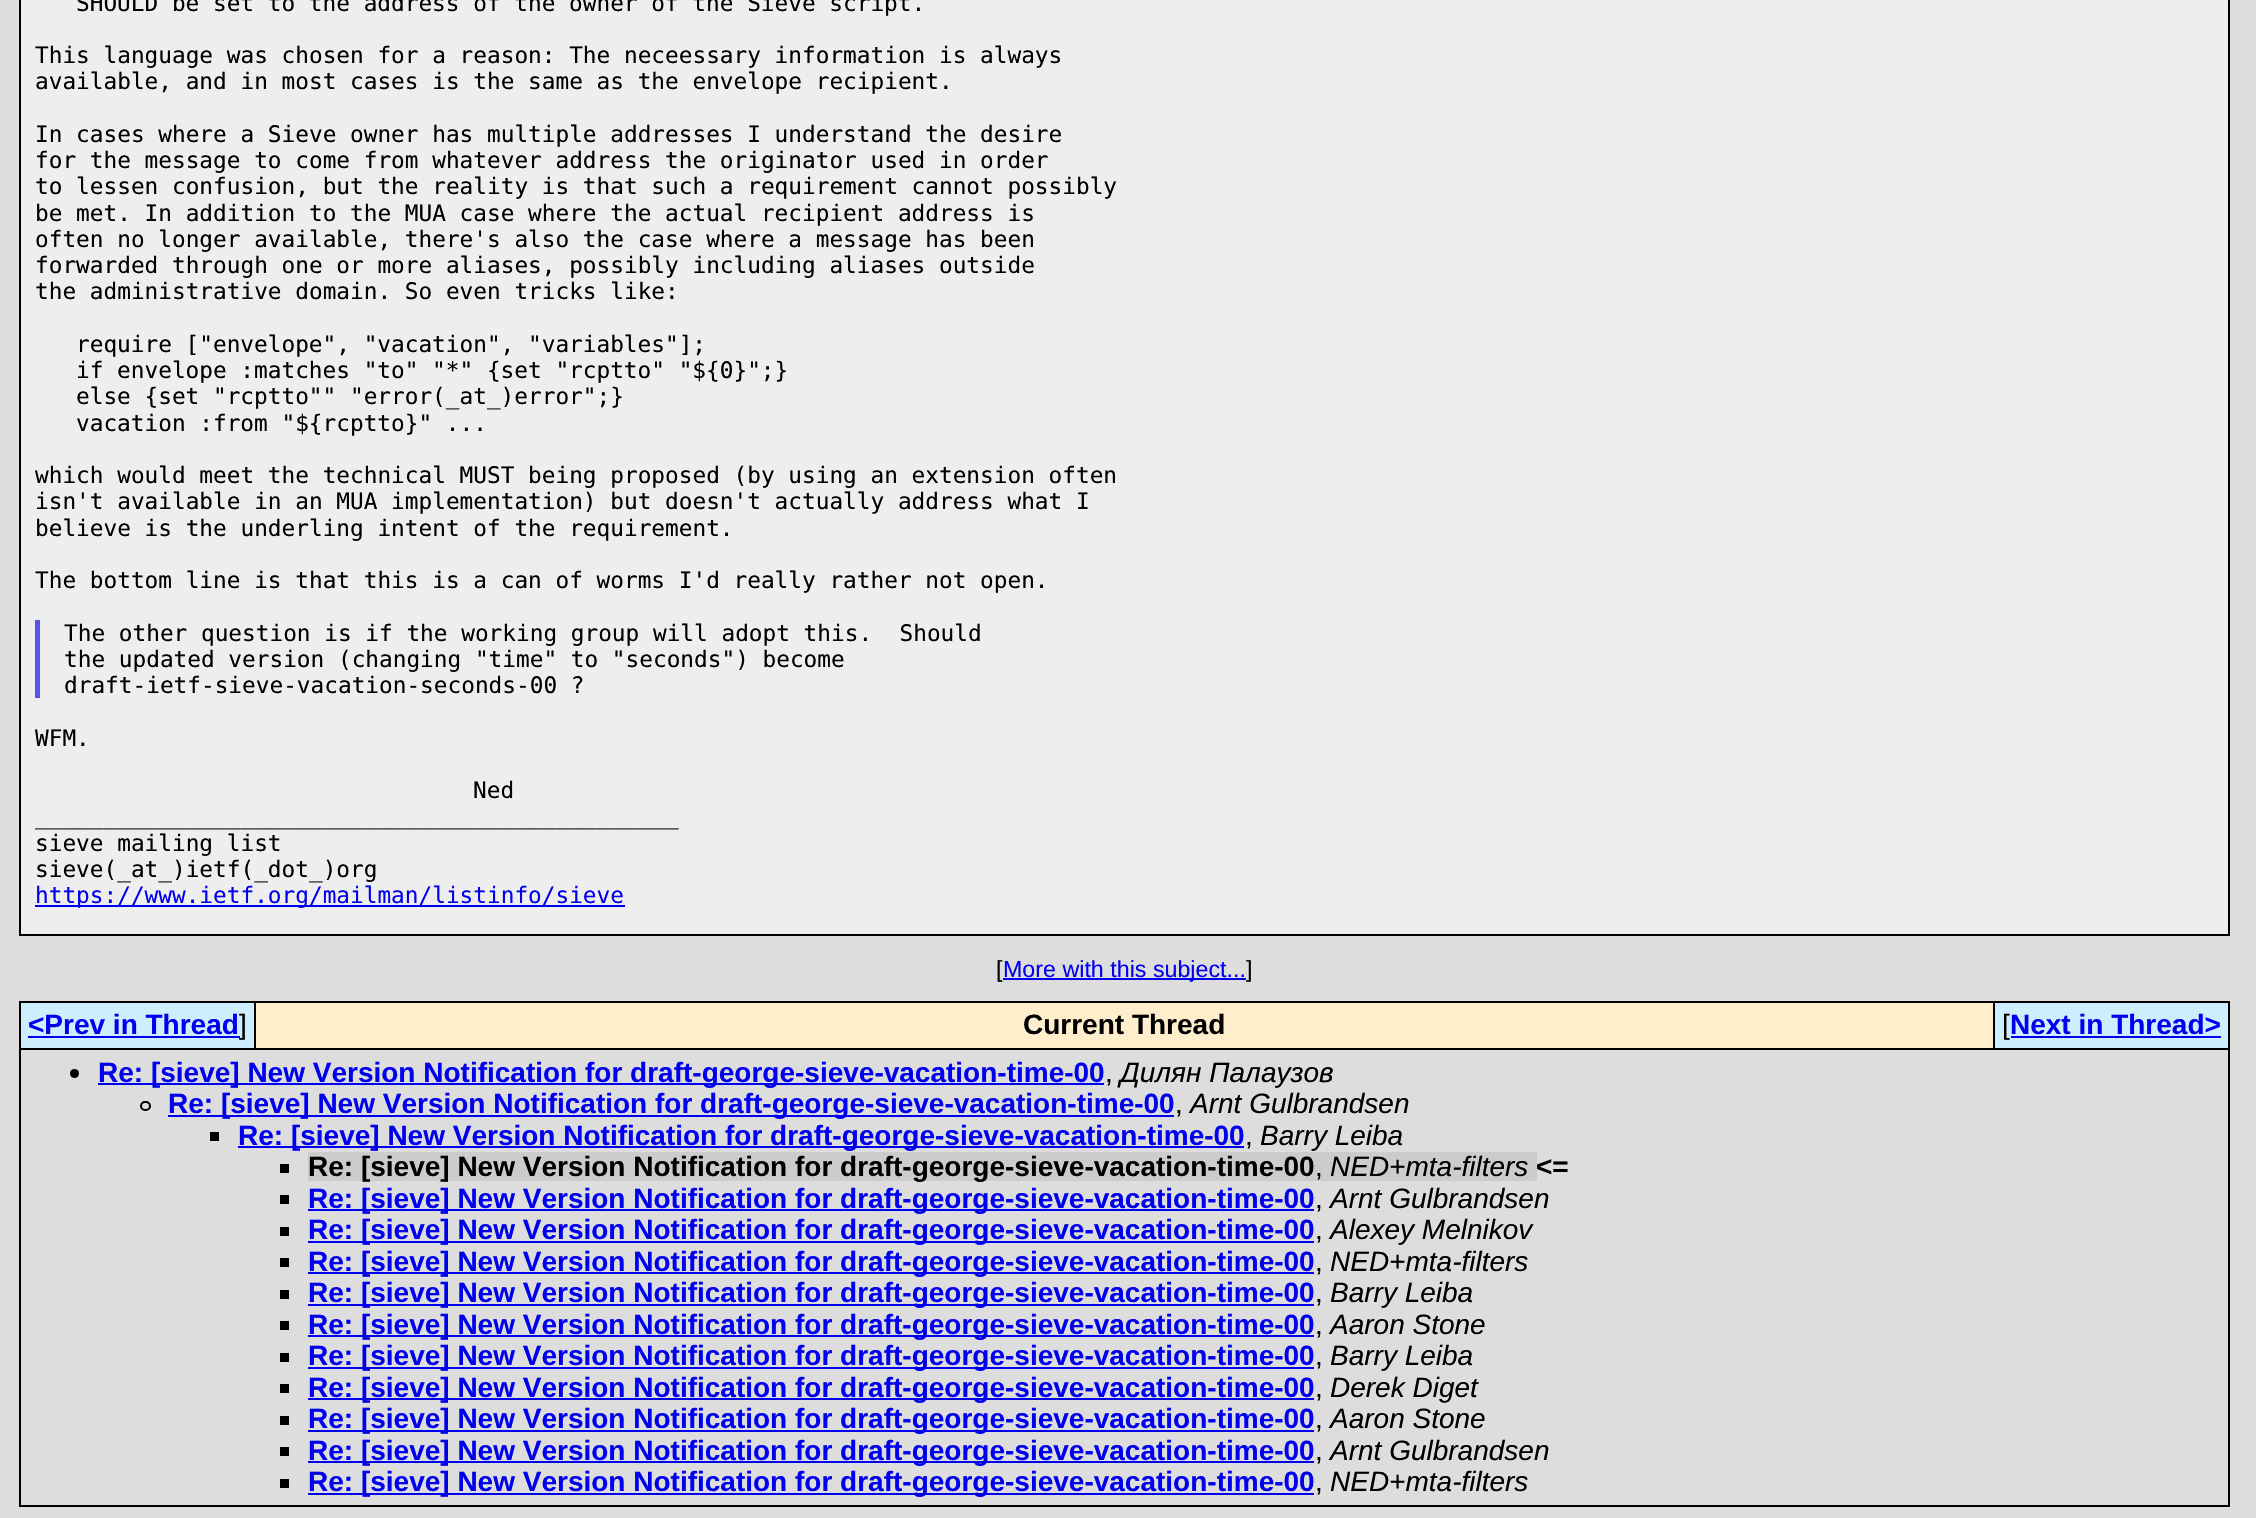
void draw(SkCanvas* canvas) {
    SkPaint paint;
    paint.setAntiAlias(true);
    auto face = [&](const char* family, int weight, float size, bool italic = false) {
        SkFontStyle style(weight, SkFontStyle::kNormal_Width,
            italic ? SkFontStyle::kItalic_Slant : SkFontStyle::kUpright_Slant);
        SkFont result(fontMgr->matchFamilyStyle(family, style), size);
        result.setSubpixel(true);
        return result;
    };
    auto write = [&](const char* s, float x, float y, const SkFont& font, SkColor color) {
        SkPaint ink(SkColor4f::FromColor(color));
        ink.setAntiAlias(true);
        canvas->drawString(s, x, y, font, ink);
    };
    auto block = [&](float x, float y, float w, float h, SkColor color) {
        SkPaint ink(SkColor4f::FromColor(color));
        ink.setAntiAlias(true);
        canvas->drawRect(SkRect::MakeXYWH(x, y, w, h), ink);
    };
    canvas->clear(SkColorSetRGB(221, 221, 221));
    paint.setColor(SkColorSetRGB(238, 238, 238));
    canvas->drawRect(SkRect::MakeXYWH(20, -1, 2209, 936), paint);
    paint.setStyle(SkPaint::kStroke_Style);
    paint.setStrokeWidth(2);
    paint.setColor(SK_ColorBLACK);
    canvas->drawRect(SkRect::MakeXYWH(20, -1, 2209, 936), paint);
    auto kFont1 = face("DejaVu Sans Mono", 400, 22.75f);
    write("SHOULD be set to the address of the owner of the Sieve script.", 76, 11, kFont1, SK_ColorBLACK);
    write("This language was chosen for a reason: The neceessary information is always", 35, 63, kFont1, SK_ColorBLACK);
    write("available, and in most cases is the same as the envelope recipient.", 35, 89, kFont1, SK_ColorBLACK);
    write("In cases where a Sieve owner has multiple addresses I understand the desire", 35, 142, kFont1, SK_ColorBLACK);
    write("for the message to come from whatever address the originator used in order", 35, 168, kFont1, SK_ColorBLACK);
    write("to lessen confusion, but the reality is that such a requirement cannot possibly", 35, 194, kFont1, SK_ColorBLACK);
    write("be met. In addition to the MUA case where the actual recipient address is", 35, 221, kFont1, SK_ColorBLACK);
    write("often no longer available, there's also the case where a message has been", 35, 247, kFont1, SK_ColorBLACK);
    write("forwarded through one or more aliases, possibly including aliases outside", 35, 273, kFont1, SK_ColorBLACK);
    write("the administrative domain. So even tricks like:", 35, 299, kFont1, SK_ColorBLACK);
    write("require [\"envelope\", \"vacation\", \"variables\"];", 76, 352, kFont1, SK_ColorBLACK);
    write("if envelope :matches \"to\" \"*\" {set \"rcptto\" \"${0}\";}", 76, 378, kFont1, SK_ColorBLACK);
    write("else {set \"rcptto\"\" \"error(_at_)error\";}", 76, 404, kFont1, SK_ColorBLACK);
    write("vacation :from \"${rcptto}\" ...", 76, 431, kFont1, SK_ColorBLACK);
    write("which would meet the technical MUST being proposed (by using an extension often", 35, 483, kFont1, SK_ColorBLACK);
    write("isn't available in an MUA implementation) but doesn't actually address what I", 35, 509, kFont1, SK_ColorBLACK);
    write("believe is the underling intent of the requirement.", 35, 536, kFont1, SK_ColorBLACK);
    write("The bottom line is that this is a can of worms I'd really rather not open.", 35, 588, kFont1, SK_ColorBLACK);
    block(35, 620, 5, 78, SkColorSetRGB(85, 85, 238));
    write("The other question is if the working group will adopt this.  Should", 64, 641, kFont1, SK_ColorBLACK);
    write("the updated version (changing \"time\" to \"seconds\") become", 64, 667, kFont1, SK_ColorBLACK);
    write("draft-ietf-sieve-vacation-seconds-00 ?", 64, 693, kFont1, SK_ColorBLACK);
    write("WFM.", 35, 746, kFont1, SK_ColorBLACK);
    write("Ned", 473, 798, kFont1, SK_ColorBLACK);
    write("_______________________________________________", 35, 824, kFont1, SK_ColorBLACK);
    write("sieve mailing list", 35, 851, kFont1, SK_ColorBLACK);
    write("sieve(_at_)ietf(_dot_)org", 35, 877, kFont1, SK_ColorBLACK);
    block(35, 905, 590, 2, SkColorSetRGB(0, 0, 238));
    write("https://www.ietf.org/mailman/listinfo/sieve", 35, 903, kFont1, SkColorSetRGB(0, 0, 238));
    auto kFont2 = face("Liberation Sans", 400, 23.25f);
    write("[", 996, 977, kFont2, SK_ColorBLACK);
    block(1003, 978, 243, 2, SkColorSetRGB(0, 0, 238));
    write("More with this subject...", 1003, 977, kFont2, SkColorSetRGB(0, 0, 238));
    write("]", 1246, 977, kFont2, SK_ColorBLACK);
    block(19, 1001, 2211, 506, SK_ColorBLACK);
    block(21, 1003, 233, 45, SkColorSetRGB(204, 238, 255));
    auto kFont3 = face("Liberation Sans", 700, 28);
    write("<Prev in Thread", 28, 1034, kFont3, SkColorSetRGB(0, 0, 238));
    block(28, 1036, 212, 2, SkColorSetRGB(0, 0, 238));
    auto kFont4 = face("Liberation Sans", 400, 28);
    write("]", 239, 1034, kFont4, SK_ColorBLACK);
    block(256, 1003, 1737, 45, SkColorSetRGB(255, 238, 204));
    write("Current Thread", 1023, 1034, kFont3, SK_ColorBLACK);
    block(1995, 1003, 233, 45, SkColorSetRGB(204, 238, 255));
    write("[", 2002, 1034, kFont4, SK_ColorBLACK);
    write("Next in Thread>", 2010, 1034, kFont3, SkColorSetRGB(0, 0, 238));
    block(2011, 1036, 210, 2, SkColorSetRGB(0, 0, 238));
    block(21, 1050, 2207, 455, SkColorSetRGB(221, 221, 221));
    paint.setStyle(SkPaint::kFill_Style);
    canvas->drawCircle(74.5f, 1073.5f, 4.5f, paint);
    block(98, 1083, 1006, 2, SkColorSetRGB(0, 0, 238));
    write("Re: [sieve] New Version Notification for draft-george-sieve-vacation-time-00", 98, 1082, kFont3, SkColorSetRGB(0, 0, 238));
    auto kFont5 = face("Liberation Sans", 400, 28, true);
    write("Дилян Палаузов", 1120, 1082, kFont5, SK_ColorBLACK);
    write(",", 1105, 1082, kFont4, SK_ColorBLACK);
    paint.setStyle(SkPaint::kStroke_Style);
    canvas->drawRoundRect(SkRect::MakeXYWH(141, 1102, 9, 8), 4, 4, paint);
    block(168, 1115, 1006, 2, SkColorSetRGB(0, 0, 238));
    write("Re: [sieve] New Version Notification for draft-george-sieve-vacation-time-00", 168, 1113, kFont3, SkColorSetRGB(0, 0, 238));
    write("Arnt Gulbrandsen", 1190, 1113, kFont5, SK_ColorBLACK);
    write(",", 1175, 1113, kFont4, SK_ColorBLACK);
    block(210, 1132, 9, 9, SK_ColorBLACK);
    block(238, 1146, 1006, 2, SkColorSetRGB(0, 0, 238));
    write("Re: [sieve] New Version Notification for draft-george-sieve-vacation-time-00", 238, 1145, kFont3, SkColorSetRGB(0, 0, 238));
    write("Barry Leiba", 1260, 1145, kFont5, SK_ColorBLACK);
    write(",", 1245, 1145, kFont4, SK_ColorBLACK);
    block(280, 1164, 9, 9, SK_ColorBLACK);
    block(308, 1152, 1229, 29, SkColorSetRGB(204, 204, 204));
    write("Re: [sieve] New Version Notification for draft-george-sieve-vacation-time-00", 308, 1176, kFont3, SK_ColorBLACK);
    write("NED+mta-filters", 1330, 1176, kFont5, SK_ColorBLACK);
    write("<=", 1536, 1176, kFont3, SK_ColorBLACK);
    write(",", 1315, 1176, kFont4, SK_ColorBLACK);
    block(280, 1195, 9, 9, SK_ColorBLACK);
    block(308, 1209, 1006, 2, SkColorSetRGB(0, 0, 238));
    write("Re: [sieve] New Version Notification for draft-george-sieve-vacation-time-00", 308, 1208, kFont3, SkColorSetRGB(0, 0, 238));
    write("Arnt Gulbrandsen", 1330, 1208, kFont5, SK_ColorBLACK);
    write(",", 1315, 1208, kFont4, SK_ColorBLACK);
    block(280, 1227, 9, 9, SK_ColorBLACK);
    block(308, 1241, 1006, 2, SkColorSetRGB(0, 0, 238));
    write("Re: [sieve] New Version Notification for draft-george-sieve-vacation-time-00", 308, 1239, kFont3, SkColorSetRGB(0, 0, 238));
    write("Alexey Melnikov", 1330, 1239, kFont5, SK_ColorBLACK);
    write(",", 1315, 1239, kFont4, SK_ColorBLACK);
    block(280, 1258, 9, 9, SK_ColorBLACK);
    block(308, 1272, 1006, 2, SkColorSetRGB(0, 0, 238));
    write("Re: [sieve] New Version Notification for draft-george-sieve-vacation-time-00", 308, 1271, kFont3, SkColorSetRGB(0, 0, 238));
    write("NED+mta-filters", 1330, 1271, kFont5, SK_ColorBLACK);
    write(",", 1315, 1271, kFont4, SK_ColorBLACK);
    block(280, 1290, 9, 9, SK_ColorBLACK);
    block(308, 1304, 1006, 2, SkColorSetRGB(0, 0, 238));
    write("Re: [sieve] New Version Notification for draft-george-sieve-vacation-time-00", 308, 1302, kFont3, SkColorSetRGB(0, 0, 238));
    write("Barry Leiba", 1330, 1302, kFont5, SK_ColorBLACK);
    write(",", 1315, 1302, kFont4, SK_ColorBLACK);
    block(280, 1321, 9, 9, SK_ColorBLACK);
    block(308, 1335, 1006, 2, SkColorSetRGB(0, 0, 238));
    write("Re: [sieve] New Version Notification for draft-george-sieve-vacation-time-00", 308, 1334, kFont3, SkColorSetRGB(0, 0, 238));
    write("Aaron Stone", 1330, 1334, kFont5, SK_ColorBLACK);
    write(",", 1315, 1334, kFont4, SK_ColorBLACK);
    block(280, 1353, 9, 9, SK_ColorBLACK);
    block(308, 1367, 1006, 2, SkColorSetRGB(0, 0, 238));
    write("Re: [sieve] New Version Notification for draft-george-sieve-vacation-time-00", 308, 1365, kFont3, SkColorSetRGB(0, 0, 238));
    write("Barry Leiba", 1330, 1365, kFont5, SK_ColorBLACK);
    write(",", 1315, 1365, kFont4, SK_ColorBLACK);
    block(280, 1384, 9, 9, SK_ColorBLACK);
    block(308, 1398, 1006, 2, SkColorSetRGB(0, 0, 238));
    write("Re: [sieve] New Version Notification for draft-george-sieve-vacation-time-00", 308, 1397, kFont3, SkColorSetRGB(0, 0, 238));
    write("Derek Diget", 1330, 1397, kFont5, SK_ColorBLACK);
    write(",", 1315, 1397, kFont4, SK_ColorBLACK);
    block(280, 1416, 9, 9, SK_ColorBLACK);
    block(308, 1430, 1006, 2, SkColorSetRGB(0, 0, 238));
    write("Re: [sieve] New Version Notification for draft-george-sieve-vacation-time-00", 308, 1428, kFont3, SkColorSetRGB(0, 0, 238));
    write("Aaron Stone", 1330, 1428, kFont5, SK_ColorBLACK);
    write(",", 1315, 1428, kFont4, SK_ColorBLACK);
    block(280, 1447, 9, 9, SK_ColorBLACK);
    block(308, 1461, 1006, 2, SkColorSetRGB(0, 0, 238));
    write("Re: [sieve] New Version Notification for draft-george-sieve-vacation-time-00", 308, 1460, kFont3, SkColorSetRGB(0, 0, 238));
    write("Arnt Gulbrandsen", 1330, 1460, kFont5, SK_ColorBLACK);
    write(",", 1315, 1460, kFont4, SK_ColorBLACK);
    block(280, 1479, 9, 9, SK_ColorBLACK);
    block(308, 1493, 1006, 2, SkColorSetRGB(0, 0, 238));
    write("Re: [sieve] New Version Notification for draft-george-sieve-vacation-time-00", 308, 1491, kFont3, SkColorSetRGB(0, 0, 238));
    write("NED+mta-filters", 1330, 1491, kFont5, SK_ColorBLACK);
    write(",", 1315, 1491, kFont4, SK_ColorBLACK);
}
